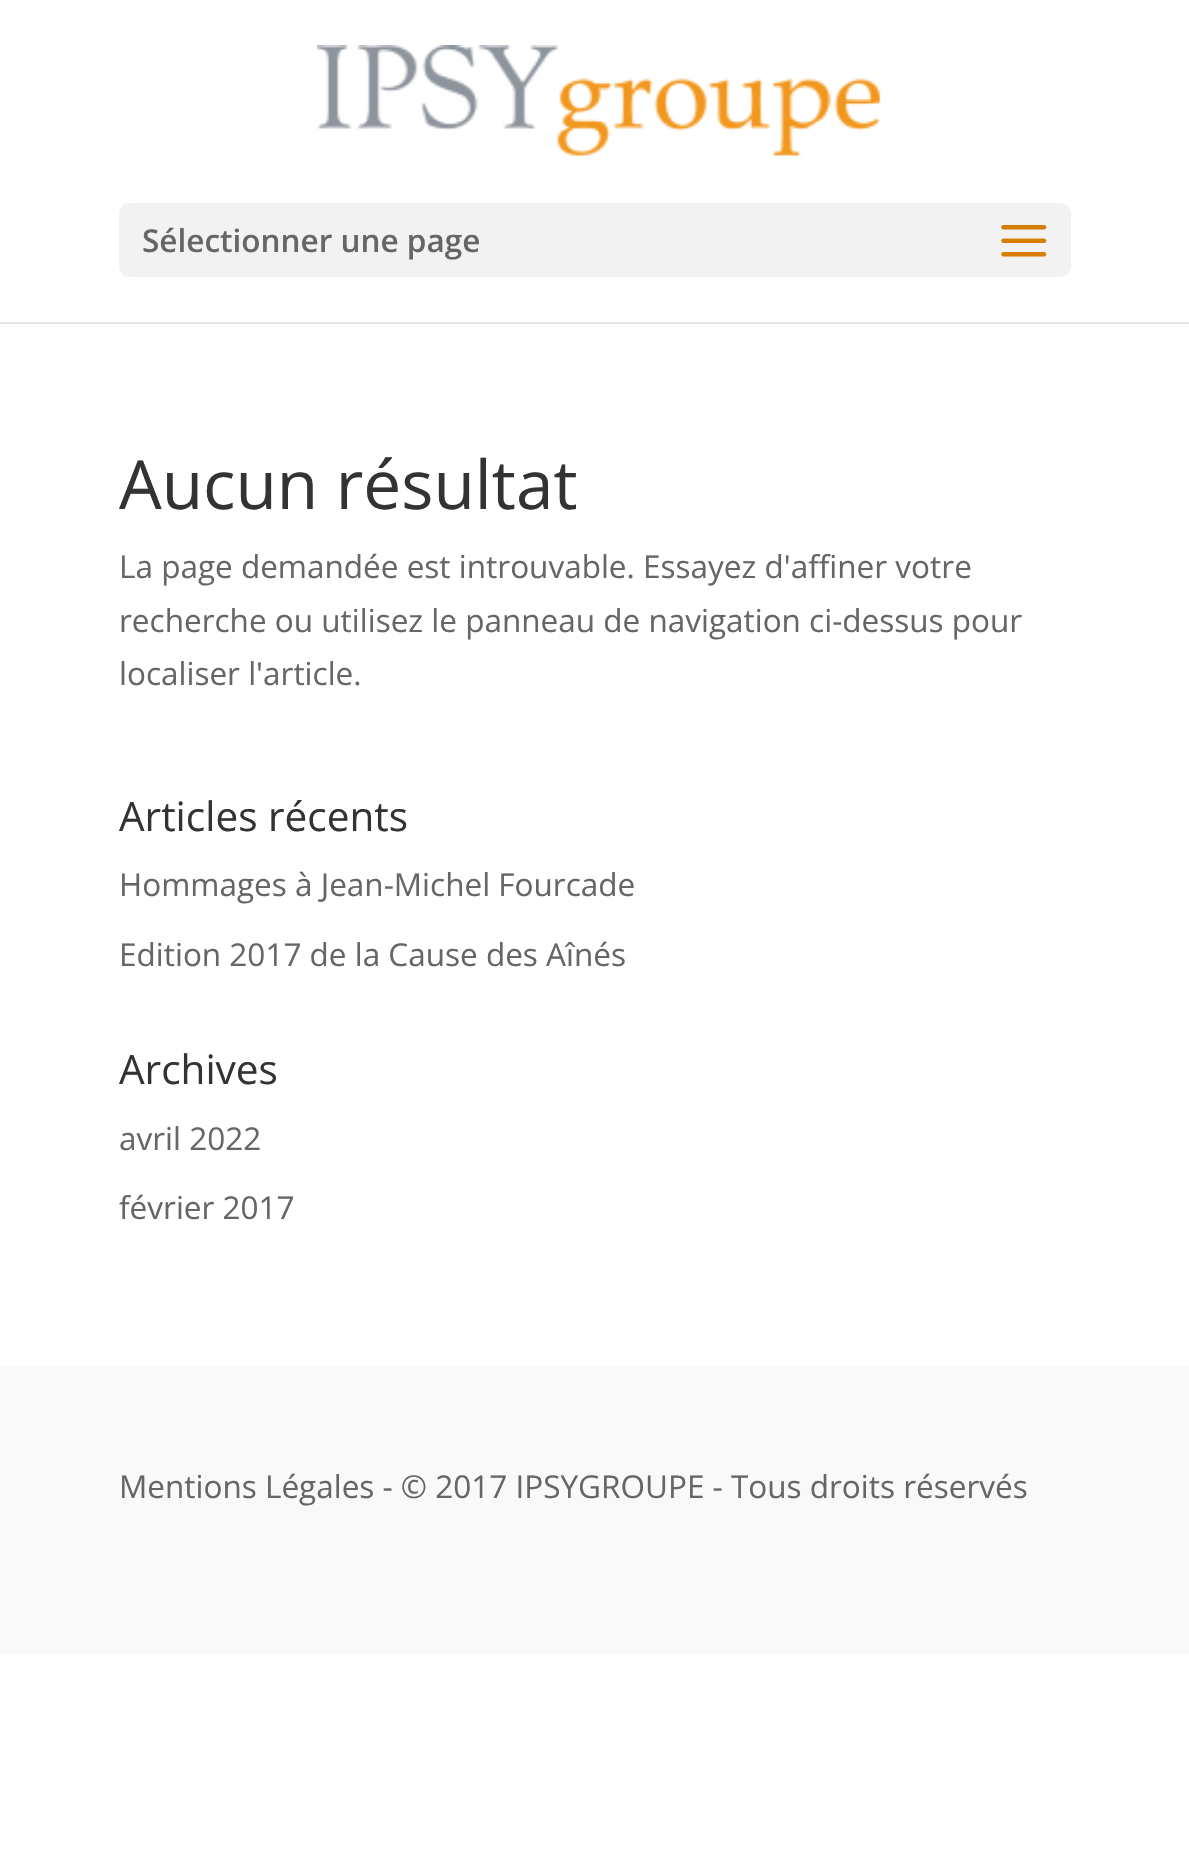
void draw(SkCanvas* canvas) {
    SkPaint paint;
    paint.setAntiAlias(true);
    auto face = [&](const char* family, int weight, float size, bool italic = false) {
        SkFontStyle style(weight, SkFontStyle::kNormal_Width,
            italic ? SkFontStyle::kItalic_Slant : SkFontStyle::kUpright_Slant);
        SkFont result(fontMgr->matchFamilyStyle(family, style), size);
        result.setSubpixel(true);
        return result;
    };
    auto write = [&](const char* s, float x, float y, const SkFont& font, SkColor color) {
        SkPaint ink(SkColor4f::FromColor(color));
        ink.setAntiAlias(true);
        canvas->drawString(s, x, y, font, ink);
    };
    auto block = [&](float x, float y, float w, float h, SkColor color) {
        SkPaint ink(SkColor4f::FromColor(color));
        ink.setAntiAlias(true);
        canvas->drawRect(SkRect::MakeXYWH(x, y, w, h), ink);
    };
    auto card = [&](float x, float y, float w, float h, float radius, SkColor color) {
        SkPaint ink(SkColor4f::FromColor(color));
        ink.setAntiAlias(true);
        canvas->drawRoundRect(SkRect::MakeXYWH(x, y, w, h), radius, radius, ink);
    };
    auto paste = [&](const char* path, float x, float y, float w, float h) {
        auto image = SkImages::DeferredFromEncodedData(SkData::MakeFromFileName(path));
        canvas->drawImageRect(image, SkRect::MakeXYWH(x, y, w, h), SkSamplingOptions());
    };
    canvas->clear(SK_ColorWHITE);
    block(0, 322, 1189, 2, SkColorSetRGB(230, 230, 230));
    paste("pic1.png", 317, 45, 564, 111);
    card(119, 203, 952, 74, 11, SkColorSetRGB(242, 242, 242));
    auto kFont1 = face("Open Sans", 600, 31.5f);
    write("Sélectionner une page", 142, 252, kFont1, SkColorSetRGB(102, 102, 102));
    paste("pic2.png", 1001, 225, 46, 32);
    auto kFont2 = face("Open Sans", 400, 67.5f);
    write("Aucun résultat", 119, 509, kFont2, SkColorSetRGB(51, 51, 51));
    auto kFont3 = face("Open Sans", 400, 31.5f);
    write("La page demandée est introuvable. Essayez d'affiner votre", 119, 578, kFont3, SkColorSetRGB(102, 102, 102));
    write("recherche ou utilisez le panneau de navigation ci-dessus pour", 119, 632, kFont3, SkColorSetRGB(102, 102, 102));
    write("localiser l'article.", 119, 685, kFont3, SkColorSetRGB(102, 102, 102));
    auto kFont4 = face("Open Sans", 400, 40.5f);
    write("Articles récents", 119, 831, kFont4, SkColorSetRGB(51, 51, 51));
    write("Hommages à Jean-Michel Fourcade", 119, 896, kFont3, SkColorSetRGB(102, 102, 102));
    write("Edition 2017 de la Cause des Aînés", 119, 966, kFont3, SkColorSetRGB(102, 102, 102));
    write("Archives", 119, 1084, kFont4, SkColorSetRGB(51, 51, 51));
    write("avril 2022", 119, 1150, kFont3, SkColorSetRGB(102, 102, 102));
    write("février 2017", 119, 1219, kFont3, SkColorSetRGB(102, 102, 102));
    block(0, 1366, 1189, 288, SkColorSetRGB(249, 249, 249));
    write("Mentions Légales - © 2017 IPSYGROUPE - Tous droits réservés", 119, 1498, kFont3, SkColorSetRGB(102, 102, 102));
}
